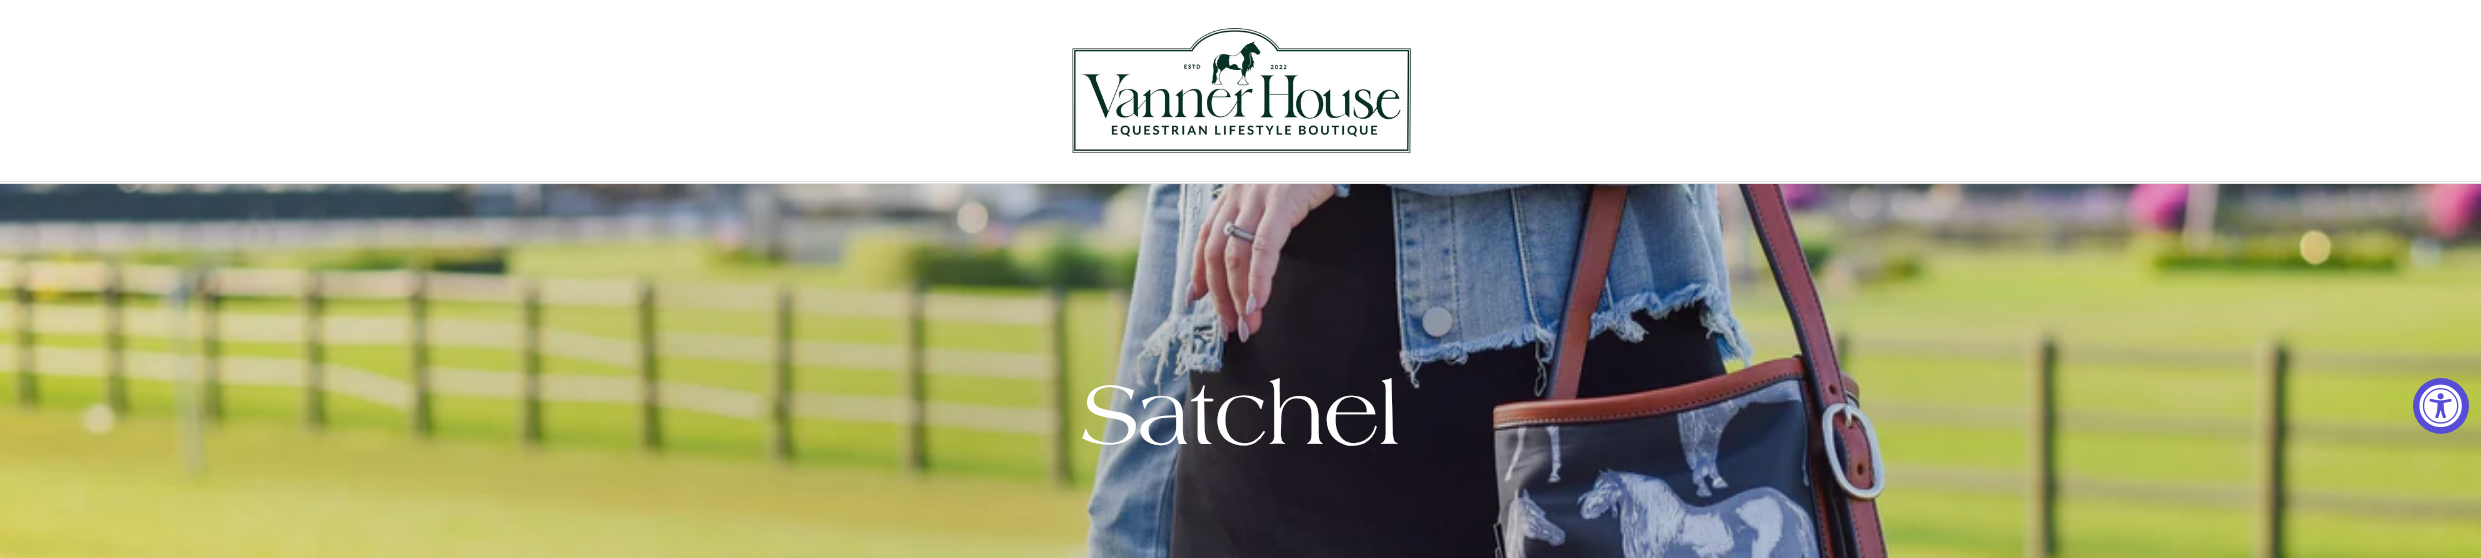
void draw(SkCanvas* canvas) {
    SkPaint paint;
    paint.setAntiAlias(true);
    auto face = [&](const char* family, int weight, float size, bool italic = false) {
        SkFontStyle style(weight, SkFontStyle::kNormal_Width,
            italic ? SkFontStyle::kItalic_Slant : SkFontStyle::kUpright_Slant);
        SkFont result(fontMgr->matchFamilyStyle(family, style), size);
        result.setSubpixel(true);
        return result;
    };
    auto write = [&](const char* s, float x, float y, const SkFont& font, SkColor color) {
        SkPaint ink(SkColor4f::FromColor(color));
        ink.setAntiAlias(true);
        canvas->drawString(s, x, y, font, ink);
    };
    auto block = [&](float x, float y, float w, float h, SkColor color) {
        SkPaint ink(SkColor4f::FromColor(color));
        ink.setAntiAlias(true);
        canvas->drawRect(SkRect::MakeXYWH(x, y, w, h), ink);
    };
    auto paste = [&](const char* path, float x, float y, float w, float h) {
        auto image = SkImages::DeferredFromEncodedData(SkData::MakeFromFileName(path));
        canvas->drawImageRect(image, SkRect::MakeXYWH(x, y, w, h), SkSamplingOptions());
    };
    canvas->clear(SK_ColorWHITE);
    block(0, 181, 2481, 1, SkColorSetRGB(223, 227, 232));
    paste("pic1.png", 1072, 28, 340, 125);
    block(0, 183, 2481, 1, SkColorSetRGB(223, 227, 232));
    paste("pic2.png", 0, 184, 2481, 374);
    auto kFont1 = face("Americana", 500, 76.25f);
    write("Satchel", 1081, 444, kFont1, SK_ColorWHITE);
    paint.setColor(SkColorSetRGB(87, 76, 213));
    canvas->drawCircle(2441, 406, 28, paint);
    paste("pic3.png", 2419, 384, 43, 44);
}
